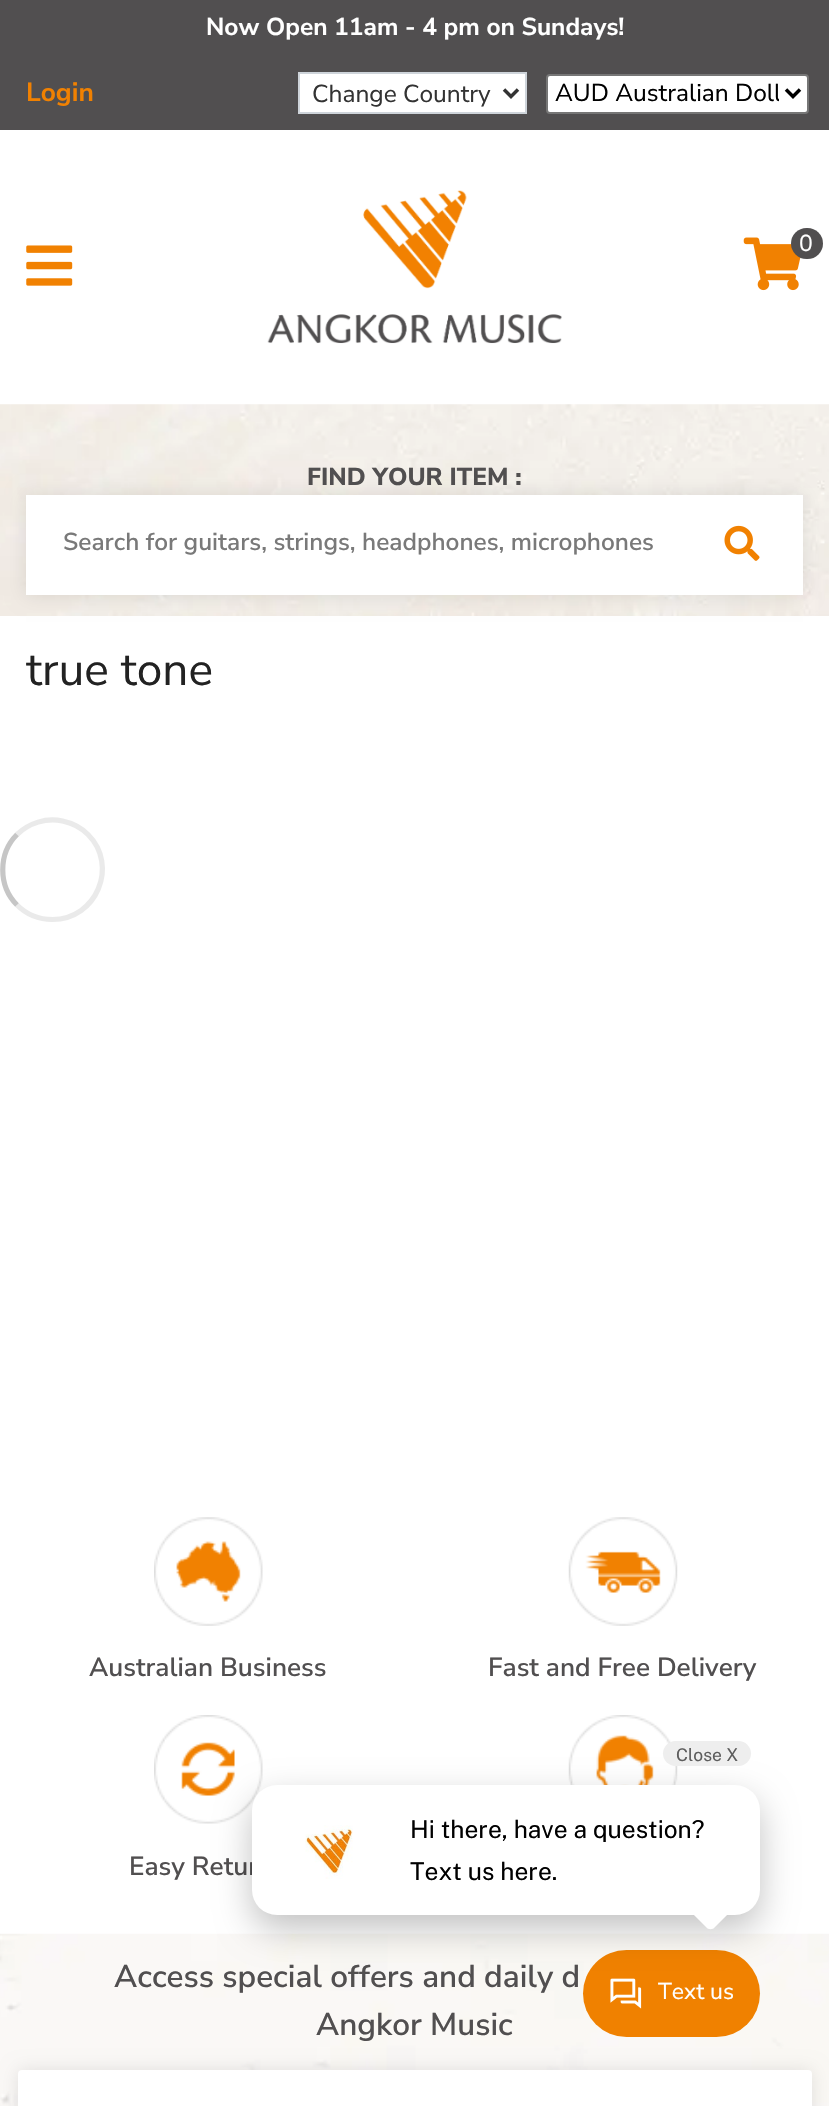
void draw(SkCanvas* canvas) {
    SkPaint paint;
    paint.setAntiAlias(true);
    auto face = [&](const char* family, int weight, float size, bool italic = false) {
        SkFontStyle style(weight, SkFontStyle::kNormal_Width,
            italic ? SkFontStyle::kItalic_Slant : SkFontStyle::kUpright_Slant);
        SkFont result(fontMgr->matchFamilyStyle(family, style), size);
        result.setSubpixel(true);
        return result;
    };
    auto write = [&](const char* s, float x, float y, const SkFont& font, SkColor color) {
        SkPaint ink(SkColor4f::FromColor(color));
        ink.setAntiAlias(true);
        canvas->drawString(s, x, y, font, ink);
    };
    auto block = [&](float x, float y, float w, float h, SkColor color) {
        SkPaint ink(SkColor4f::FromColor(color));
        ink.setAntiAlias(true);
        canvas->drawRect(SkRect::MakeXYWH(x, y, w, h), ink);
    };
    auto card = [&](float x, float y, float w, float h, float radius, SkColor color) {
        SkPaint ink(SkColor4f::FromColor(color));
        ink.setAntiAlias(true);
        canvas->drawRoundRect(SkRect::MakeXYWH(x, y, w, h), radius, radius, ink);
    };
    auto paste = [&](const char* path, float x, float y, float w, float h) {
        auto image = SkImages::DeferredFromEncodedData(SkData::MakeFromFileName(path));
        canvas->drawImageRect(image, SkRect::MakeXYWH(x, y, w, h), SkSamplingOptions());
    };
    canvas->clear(SK_ColorWHITE);
    block(0, 0, 829, 130, SkColorSetRGB(81, 79, 80));
    auto kFont1 = face("Nunito Sans", 700, 24.5f);
    write("Now Open 11am - 4 pm on Sundays!", 206, 35, kFont1, SK_ColorWHITE);
    auto kFont2 = face("Nunito Sans", 700, 26.25f);
    write("Login", 26, 101, kFont2, SkColorSetRGB(241, 129, 1));
    paint.setColor(SK_ColorWHITE);
    canvas->drawRect(SkRect::MakeXYWH(299, 73, 227, 40), paint);
    paint.setStyle(SkPaint::kStroke_Style);
    paint.setStrokeWidth(2);
    paint.setColor(SkColorSetRGB(206, 212, 218));
    canvas->drawRect(SkRect::MakeXYWH(299, 73, 227, 40), paint);
    paint.setStrokeWidth(3.5f);
    paint.setColor(SkColorSetRGB(51, 51, 51));
    canvas->drawPath(SkPathBuilder().moveTo(504, 89.5f).lineTo(511, 96.5f).lineTo(518, 89.5f).detach(), paint);
    auto kFont3 = face("Nunito Sans", 400, 24.5f);
    write("Change Country", 312, 102, kFont3, SkColorSetRGB(51, 51, 51));
    paint.setStyle(SkPaint::kFill_Style);
    paint.setColor(SK_ColorWHITE);
    canvas->drawRoundRect(SkRect::MakeXYWH(547, 75, 261, 38), 3, 3, paint);
    paint.setStyle(SkPaint::kStroke_Style);
    paint.setStrokeWidth(2);
    paint.setColor(SkColorSetRGB(118, 118, 118));
    canvas->drawRoundRect(SkRect::MakeXYWH(547, 75, 261, 38), 3, 3, paint);
    paint.setStrokeWidth(3.5f);
    paint.setColor(SK_ColorBLACK);
    canvas->drawPath(SkPathBuilder().moveTo(786, 89.5f).lineTo(793, 96.5f).lineTo(800, 89.5f).detach(), paint);
    canvas->save();
    canvas->clipRect(SkRect::MakeXYWH(555, 75, 224, 37));
    write("AUD Australian Doll", 555, 101, kFont3, SK_ColorBLACK);
    canvas->restore();
    paste("pic1.png", 267, 190, 295, 154);
    paste("pic2.png", 743, 237, 58, 54);
    card(791, 228, 32, 31, 15.5f, SkColorSetRGB(81, 79, 80));
    auto kFont4 = face("Nunito Sans", 400, 23);
    write("0", 799, 251, kFont4, SK_ColorWHITE);
    paste("pic3.png", 26, 245, 47, 41);
    paste("pic4.png", 0, 404, 829, 212);
    auto kFont5 = face("Nunito Sans", 800, 24.5f);
    write("FIND YOUR ITEM :", 307, 485, kFont5, SkColorSetRGB(81, 79, 80));
    block(26, 495, 777, 100, SK_ColorWHITE);
    canvas->save();
    canvas->clipPath(SkPathBuilder(SkPathFillType::kEvenOdd).moveTo(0, 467).lineTo(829, 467).lineTo(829, 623).lineTo(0, 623).close().moveTo(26, 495).lineTo(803, 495).lineTo(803, 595).lineTo(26, 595).close().detach(), true);
    paint.setStyle(SkPaint::kFill_Style);
    paint.setColor(SkColorSetARGB(26, 0, 0, 0));
    paint.setMaskFilter(SkMaskFilter::MakeBlur(kNormal_SkBlurStyle, 9));
    canvas->drawRect(SkRect::MakeXYWH(26, 495, 777, 100), paint);
    paint.setMaskFilter(nullptr);
    canvas->restore();
    auto kFont6 = face("Nunito Sans", 600, 24.5f);
    write("Search for guitars, strings, headphones, microphones", 63, 550, kFont6, SkColorSetRGB(121, 121, 121));
    paste("pic5.png", 724, 525, 36, 36);
    auto kFont7 = face("Nunito Sans", 400, 46);
    write("true tone", 26, 685, kFont7, SkColorSetRGB(34, 34, 34));
    paint.setStyle(SkPaint::kStroke_Style);
    paint.setStrokeWidth(5.2f);
    paint.setColor(SkColorSetRGB(234, 234, 234));
    canvas->drawPath(SkPathBuilder().moveTo(17, 834.5f).cubicTo(29, 823, 46, 817.5f, 62.5f, 821).cubicTo(72, 823, 81, 827.5f, 88, 834.5f).cubicTo(119, 865.5f, 96.5f, 919.5f, 52.5f, 919.5f).cubicTo(39.5f, 919.5f, 26.5f, 914.5f, 17, 905).detach(), paint);
    paint.setColor(SkColorSetRGB(198, 198, 198));
    canvas->drawPath(SkPathBuilder().moveTo(17, 905).cubicTo(-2, 886, -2, 853.5f, 17, 834.5f).detach(), paint);
    paste("pic6.png", 154, 1517, 109, 109);
    auto kFont8 = face("Nunito Sans", 600, 26.25f);
    write("Australian Business", 89, 1676, kFont8, SkColorSetRGB(81, 79, 80));
    paste("pic7.png", 568, 1517, 110, 109);
    write("Fast and Free Delivery", 488, 1676, kFont8, SkColorSetRGB(81, 79, 80));
    paste("pic8.png", 568, 1715, 110, 70);
    paste("pic9.png", 154, 1715, 109, 109);
    write("Easy Retur", 129, 1875, kFont8, SkColorSetRGB(81, 79, 80));
    paste("pic12.png", 0, 1933, 829, 173);
    card(583, 1950, 177, 87, 43.5f, SkColorSetRGB(240, 129, 0));
    paste("pic11.png", 610, 1978, 32, 31);
    paint.setStyle(SkPaint::kFill_Style);
    paint.setColor(SkColorSetARGB(61, 0, 0, 0));
    paint.setMaskFilter(SkMaskFilter::MakeBlur(kNormal_SkBlurStyle, 17.5f));
    canvas->drawRoundRect(SkRect::MakeXYWH(252, 1799, 508, 130), 25, 25, paint);
    paint.setMaskFilter(nullptr);
    card(252, 1785, 508, 130, 25, SK_ColorWHITE);
    card(663, 1741, 88, 25, 12.5f, SkColorSetRGB(238, 238, 238));
    auto kFont9 = face("Public Sans", 100, 17.5f);
    write("Close X", 676, 1761, kFont9, SkColorSetRGB(93, 93, 93));
    paste("pic10.png", 305, 1825, 48, 54);
    auto kFont10 = face("Public Sans", 100, 24.5f);
    write("Hi there, have a question?", 410, 1838, kFont10, SK_ColorBLACK);
    write("Text us here.", 410, 1880, kFont10, SK_ColorBLACK);
    paint.setColor(SK_ColorWHITE);
    canvas->drawPath(SkPathBuilder().moveTo(715, 1888).lineTo(730, 1903).cubicTo(733, 1905, 733, 1910, 730, 1912).lineTo(715, 1927).cubicTo(713, 1930, 708, 1930, 706, 1927).lineTo(691, 1912).cubicTo(688, 1910, 688, 1905, 691, 1903).lineTo(706, 1888).cubicTo(708, 1885, 713, 1885, 715, 1888).close().detach(), paint);
    write("Text us", 658, 1999, kFont4, SK_ColorWHITE);
    auto kFont11 = face("Nunito Sans", 600, 31.5f);
    write("Access special offers and daily d", 114, 1987, kFont11, SkColorSetRGB(81, 79, 80));
    write("Angkor Music", 316, 2035, kFont11, SkColorSetRGB(81, 79, 80));
    paint.setColor(SkColorSetARGB(26, 0, 0, 0));
    paint.setMaskFilter(SkMaskFilter::MakeBlur(kNormal_SkBlurStyle, 9));
    canvas->drawRoundRect(SkRect::MakeXYWH(18, 2070, 794, 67), 4, 4, paint);
    paint.setMaskFilter(nullptr);
    card(18, 2070, 794, 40, 4, SK_ColorWHITE);
}
